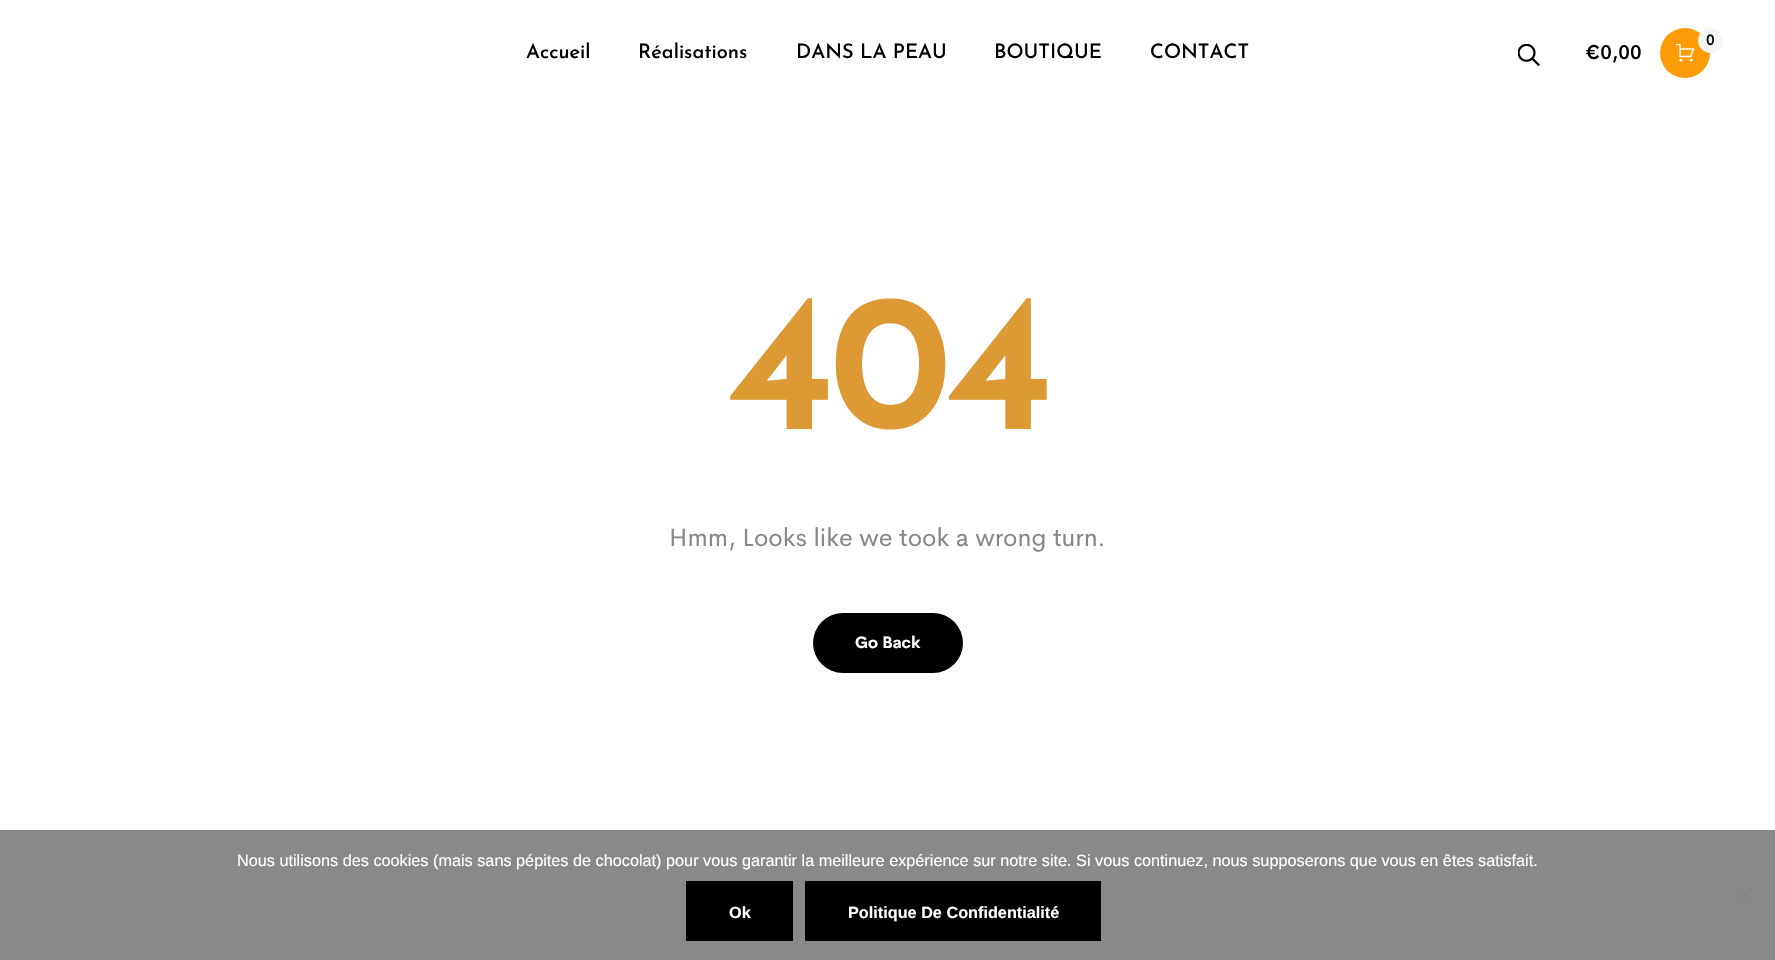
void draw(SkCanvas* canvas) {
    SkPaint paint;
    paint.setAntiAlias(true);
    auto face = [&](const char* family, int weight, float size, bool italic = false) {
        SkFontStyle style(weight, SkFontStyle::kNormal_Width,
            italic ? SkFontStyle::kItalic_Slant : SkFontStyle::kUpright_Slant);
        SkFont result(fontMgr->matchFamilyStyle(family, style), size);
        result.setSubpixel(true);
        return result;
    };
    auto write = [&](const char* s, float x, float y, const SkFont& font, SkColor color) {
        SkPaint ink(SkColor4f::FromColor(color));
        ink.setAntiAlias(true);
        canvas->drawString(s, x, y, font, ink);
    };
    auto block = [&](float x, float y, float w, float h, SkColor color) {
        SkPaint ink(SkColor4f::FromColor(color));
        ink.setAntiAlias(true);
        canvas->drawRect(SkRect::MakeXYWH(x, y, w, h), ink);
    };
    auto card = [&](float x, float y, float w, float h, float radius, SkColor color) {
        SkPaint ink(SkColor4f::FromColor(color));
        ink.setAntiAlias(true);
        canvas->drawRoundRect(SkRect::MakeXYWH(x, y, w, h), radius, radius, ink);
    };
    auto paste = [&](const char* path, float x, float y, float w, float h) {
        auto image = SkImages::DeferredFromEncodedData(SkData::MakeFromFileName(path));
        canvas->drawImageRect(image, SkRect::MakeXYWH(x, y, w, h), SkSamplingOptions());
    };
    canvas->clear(SK_ColorWHITE);
    auto kFont1 = face("Josefin Sans", 100, 20);
    write("Accueil", 526, 58, kFont1, SK_ColorBLACK);
    write("Réalisations", 638, 58, kFont1, SK_ColorBLACK);
    write("DANS LA PEAU", 796, 58, kFont1, SK_ColorBLACK);
    write("BOUTIQUE", 994, 58, kFont1, SK_ColorBLACK);
    write("CONTACT", 1150, 58, kFont1, SK_ColorBLACK);
    paste("pic1.png", 1518, 44, 22, 23);
    paint.setColor(SkColorSetRGB(255, 155, 6));
    canvas->drawCircle(1685, 53, 25, paint);
    paint.setColor(SkColorSetRGB(246, 246, 246));
    canvas->drawCircle(1710.5f, 40.5f, 12.5f, paint);
    auto kFont2 = face("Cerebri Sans", 500, 15);
    write("0", 1706, 45, kFont2, SK_ColorBLACK);
    paste("pic2.png", 1676, 44, 19, 18);
    auto kFont3 = face("Cerebri Sans", 500, 20);
    write("€0,00", 1585, 59, kFont3, SK_ColorBLACK);
    auto kFont4 = face("Josefin Sans", 700, 188);
    write("404", 728, 429, kFont4, SkColorSetRGB(221, 153, 51));
    auto kFont5 = face("Cerebri Sans", 400, 25);
    write("Hmm, Looks like we took a wrong turn.", 669, 546, kFont5, SkColorSetRGB(136, 136, 136));
    card(813, 613, 150, 60, 30, SK_ColorBLACK);
    auto kFont6 = face("Cerebri Sans", 700, 16.25f);
    write("Go Back", 855, 648, kFont6, SK_ColorWHITE);
    block(0, 830, 1775, 130, SkColorSetRGB(137, 137, 137));
    auto kFont7 = face("Liberation Sans", 400, 16.25f);
    write("Nous utilisons des cookies (mais sans pépites de chocolat) pour vous garantir la meilleure expérience sur notre site. Si vous continuez, nous supposerons que vous en êtes satisfait.", 237, 866, kFont7, SK_ColorWHITE);
    paint.setColor(SkColorSetRGB(133, 133, 133));
    canvas->drawPath(SkPathBuilder().moveTo(1750.5f, 888).lineTo(1752.5f, 890).lineTo(1739.5f, 903).lineTo(1737.5f, 901.5f).close().detach(), paint);
    canvas->drawPath(SkPathBuilder().moveTo(1737.5f, 890).lineTo(1739.5f, 888).lineTo(1752.5f, 901.5f).lineTo(1750.5f, 903).close().detach(), paint);
    block(686, 881, 107, 60, SK_ColorBLACK);
    auto kFont8 = face("Liberation Sans", 700, 16.25f);
    write("Ok", 729, 918, kFont8, SK_ColorWHITE);
    block(805, 881, 296, 60, SK_ColorBLACK);
    write("Politique De Confidentialité", 848, 918, kFont8, SK_ColorWHITE);
}
